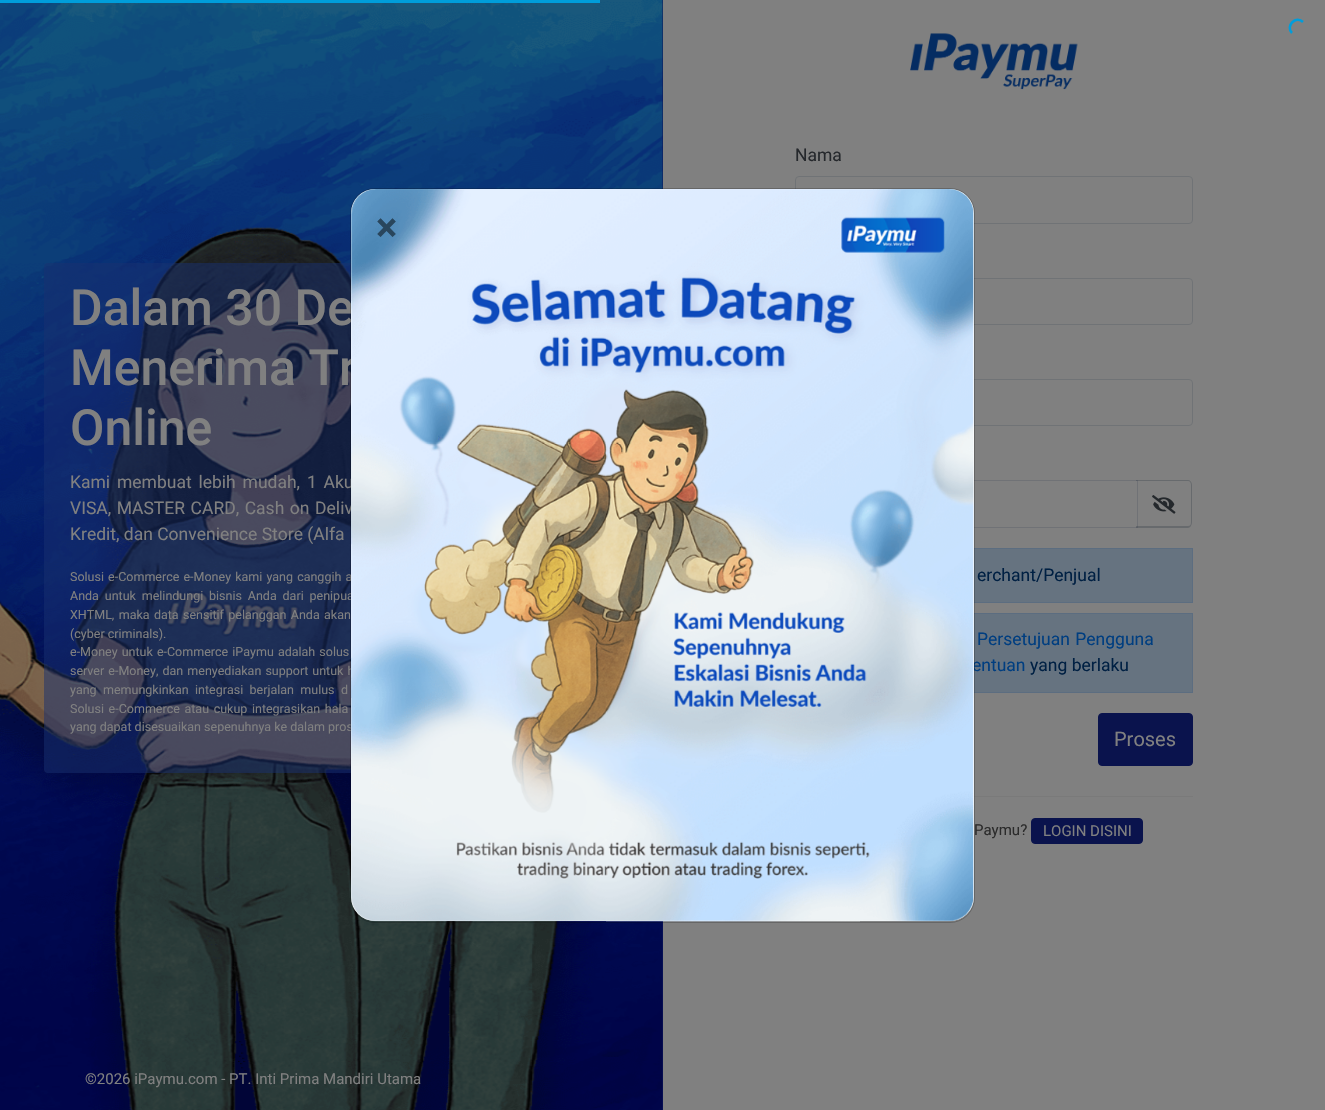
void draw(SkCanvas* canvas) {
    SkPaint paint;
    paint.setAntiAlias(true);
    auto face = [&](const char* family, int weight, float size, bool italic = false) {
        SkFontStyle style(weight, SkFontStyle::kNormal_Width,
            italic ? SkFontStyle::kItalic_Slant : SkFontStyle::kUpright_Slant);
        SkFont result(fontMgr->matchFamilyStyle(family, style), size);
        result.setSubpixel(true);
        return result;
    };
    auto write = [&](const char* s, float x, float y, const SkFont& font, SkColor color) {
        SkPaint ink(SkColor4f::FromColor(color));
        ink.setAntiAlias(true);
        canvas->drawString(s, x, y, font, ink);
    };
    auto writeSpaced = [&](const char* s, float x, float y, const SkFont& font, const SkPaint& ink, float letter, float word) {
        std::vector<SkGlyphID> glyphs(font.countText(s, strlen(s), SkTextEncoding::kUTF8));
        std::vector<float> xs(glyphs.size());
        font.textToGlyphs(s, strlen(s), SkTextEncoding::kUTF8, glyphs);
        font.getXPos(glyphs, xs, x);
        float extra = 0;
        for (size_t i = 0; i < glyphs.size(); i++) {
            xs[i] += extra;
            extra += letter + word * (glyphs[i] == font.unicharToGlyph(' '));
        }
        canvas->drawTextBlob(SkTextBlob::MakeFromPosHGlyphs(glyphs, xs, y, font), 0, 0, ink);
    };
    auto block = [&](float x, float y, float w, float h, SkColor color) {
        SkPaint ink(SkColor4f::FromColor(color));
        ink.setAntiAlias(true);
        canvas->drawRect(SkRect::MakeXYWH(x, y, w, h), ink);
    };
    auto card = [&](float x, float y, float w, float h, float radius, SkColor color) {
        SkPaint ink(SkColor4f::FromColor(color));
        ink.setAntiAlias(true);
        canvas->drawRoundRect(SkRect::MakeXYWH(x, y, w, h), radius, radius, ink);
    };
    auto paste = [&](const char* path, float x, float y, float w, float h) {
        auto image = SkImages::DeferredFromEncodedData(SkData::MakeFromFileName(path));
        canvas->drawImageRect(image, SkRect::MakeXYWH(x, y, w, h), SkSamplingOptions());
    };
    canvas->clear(SkColorSetRGB(128, 128, 128));
    block(662, 0, 1, 1110, SkColorSetRGB(13, 23, 88));
    paste("pic1.png", 0, 0, 663, 1110);
    block(0, 0, 600, 3, SkColorSetRGB(0, 157, 219));
    paint.setStyle(SkPaint::kStroke_Style);
    paint.setStrokeWidth(2.5f);
    paint.setColor(SkColorSetRGB(0, 157, 219));
    canvas->drawPath(SkPathBuilder().moveTo(1292, 33).cubicTo(1285, 26, 1296, 15, 1303, 22).detach(), paint);
    card(44, 263, 575, 510, 4, SkColorSetARGB(128, 23, 48, 111));
    auto kFont1 = face("Roboto", 500, 50);
    write("Dalam 30 De", 70, 325, kFont1, SkColorSetRGB(128, 128, 128));
    write("Menerima Tr", 70, 385, kFont1, SkColorSetRGB(128, 128, 128));
    write("Online", 70, 445, kFont1, SkColorSetRGB(128, 128, 128));
    auto kFont2 = face("Roboto", 400, 17.5f);
    paint.setStyle(SkPaint::kFill_Style);
    paint.setColor(SkColorSetRGB(128, 128, 128));
    writeSpaced("Kami membuat lebih mudah, 1 Aku", 70, 488, kFont2, paint, 0, 2.5f);
    writeSpaced("VISA, MASTER CARD, Cash on Deliv", 70, 514, kFont2, paint, 0, 1.25f);
    write("Kredit, dan Convenience Store (Alfa", 70, 540, kFont2, SkColorSetRGB(128, 128, 128));
    auto kFont3 = face("Roboto", 400, 12.5f);
    writeSpaced("Solusi e-Commerce e-Money kami yang canggih a", 70, 581, kFont3, paint, 0, 1);
    writeSpaced("Anda untuk melindungi bisnis Anda dari penipua", 70, 600, kFont3, paint, 0, 2.75f);
    writeSpaced("XHTML, maka data sensitif pelanggan Anda akan", 70, 619, kFont3, paint, 0, 1.25f);
    write("(cyber criminals).", 70, 638, kFont3, SkColorSetRGB(128, 128, 128));
    writeSpaced("e-Money untuk e-Commerce iPaymu adalah solus", 70, 656, kFont3, paint, 0, 1);
    writeSpaced("server e-Money, dan menyediakan support untuk h", 70, 675, kFont3, paint, 0, 1);
    writeSpaced("yang memungkinkan integrasi berjalan mulus d", 70, 694, kFont3, paint, 0, 3.25f);
    writeSpaced("Solusi e-Commerce atau cukup integrasikan hala", 70, 713, kFont3, paint, 0, 1.5f);
    write("yang dapat disesuaikan sepenuhnya ke dalam pros", 70, 731, kFont3, SkColorSetRGB(128, 128, 128));
    auto kFont4 = face("Roboto", 400, 15);
    write("©2026 iPaymu.com - PT. Inti Prima Mandiri Utama", 85, 1084, kFont4, SkColorSetRGB(128, 128, 128));
    paste("pic2.png", 910, 33, 168, 57);
    write("Nama", 795, 161, kFont2, SkColorSetRGB(37, 40, 44));
    paint.setStyle(SkPaint::kStroke_Style);
    paint.setStrokeWidth(1);
    paint.setColor(SkColorSetRGB(112, 115, 118));
    canvas->drawRoundRect(SkRect::MakeXYWH(795.5f, 176.5f, 397, 47), 3.5f, 3.5f, paint);
    canvas->drawRoundRect(SkRect::MakeXYWH(795.5f, 278.5f, 397, 46), 3.5f, 3.5f, paint);
    canvas->drawRoundRect(SkRect::MakeXYWH(795.5f, 379.5f, 397, 46), 3.5f, 3.5f, paint);
    paint.setStyle(SkPaint::kFill_Style);
    paint.setColor(SkColorSetRGB(103, 106, 109));
    canvas->drawPath(SkPathBuilder(SkPathFillType::kEvenOdd).moveTo(1136, 480).lineTo(1188, 480).cubicTo(1190, 480, 1192, 482, 1192, 485).lineTo(1192, 522).cubicTo(1192, 525, 1190, 528, 1188, 528).lineTo(1136, 528).close().moveTo(1136, 481).lineTo(1188, 481).cubicTo(1190, 481, 1191, 483, 1191, 485).lineTo(1191, 522).cubicTo(1191, 525, 1190, 526, 1188, 526).lineTo(1136, 526).close().detach(), paint);
    paint.setStyle(SkPaint::kStroke_Style);
    paint.setColor(SkColorSetARGB(31, 0, 20, 50));
    canvas->drawRect(SkRect::MakeXYWH(795.5f, 480.5f, 342, 47), paint);
    paste("pic3.png", 1152, 495, 24, 19);
    block(974, 549, 218, 53, SkColorSetRGB(102, 115, 128));
    paint.setColor(SkColorSetRGB(92, 109, 128));
    canvas->drawRect(SkRect::MakeXYWH(795.5f, 548.5f, 397, 54), paint);
    write("erchant/Penjual", 977, 581, kFont2, SkColorSetRGB(0, 32, 67));
    block(974, 614, 218, 78, SkColorSetRGB(102, 115, 128));
    canvas->drawRect(SkRect::MakeXYWH(795.5f, 613.5f, 397, 79), paint);
    paint.setStyle(SkPaint::kFill_Style);
    paint.setColor(SkColorSetRGB(0, 62, 128));
    writeSpaced("Persetujuan Pengguna", 977, 645, kFont2, paint, 0, 1);
    write("entuan", 972, 671, kFont2, SkColorSetRGB(0, 62, 128));
    write("yang berlaku", 1030, 671, kFont2, SkColorSetRGB(0, 32, 67));
    paint.setColor(SkColorSetRGB(10, 19, 77));
    canvas->drawRoundRect(SkRect::MakeXYWH(1098.5f, 713.5f, 94, 52), 3.5f, 3.5f, paint);
    paint.setStyle(SkPaint::kStroke_Style);
    canvas->drawRoundRect(SkRect::MakeXYWH(1098.5f, 713.5f, 94, 52), 3.5f, 3.5f, paint);
    auto kFont5 = face("Roboto", 400, 20);
    write("Proses", 1114, 746, kFont5, SkColorSetRGB(128, 128, 128));
    block(974, 796, 219, 1, SkColorSetRGB(122, 122, 122));
    write("Paymu?", 974, 835, kFont4, SkColorSetRGB(43, 43, 43));
    paint.setStyle(SkPaint::kFill_Style);
    canvas->drawRoundRect(SkRect::MakeXYWH(1031.5f, 818.5f, 111, 25), 3.5f, 3.5f, paint);
    paint.setStyle(SkPaint::kStroke_Style);
    canvas->drawRoundRect(SkRect::MakeXYWH(1031.5f, 818.5f, 111, 25), 3.5f, 3.5f, paint);
    write("LOGIN DISINI", 1043, 836, kFont4, SkColorSetRGB(128, 128, 128));
    card(351, 189, 623, 732, 24, SK_ColorWHITE);
    paint.setColor(SkColorSetARGB(51, 0, 0, 0));
    canvas->drawRoundRect(SkRect::MakeXYWH(350.5f, 188.5f, 624, 734), 24.5f, 24.5f, paint);
    paste("pic4.png", 351, 189, 623, 733);
    auto kFont6 = face("Roboto", 700, 40);
    write("×", 376, 241, kFont6, SkColorSetRGB(41, 70, 93));
}
